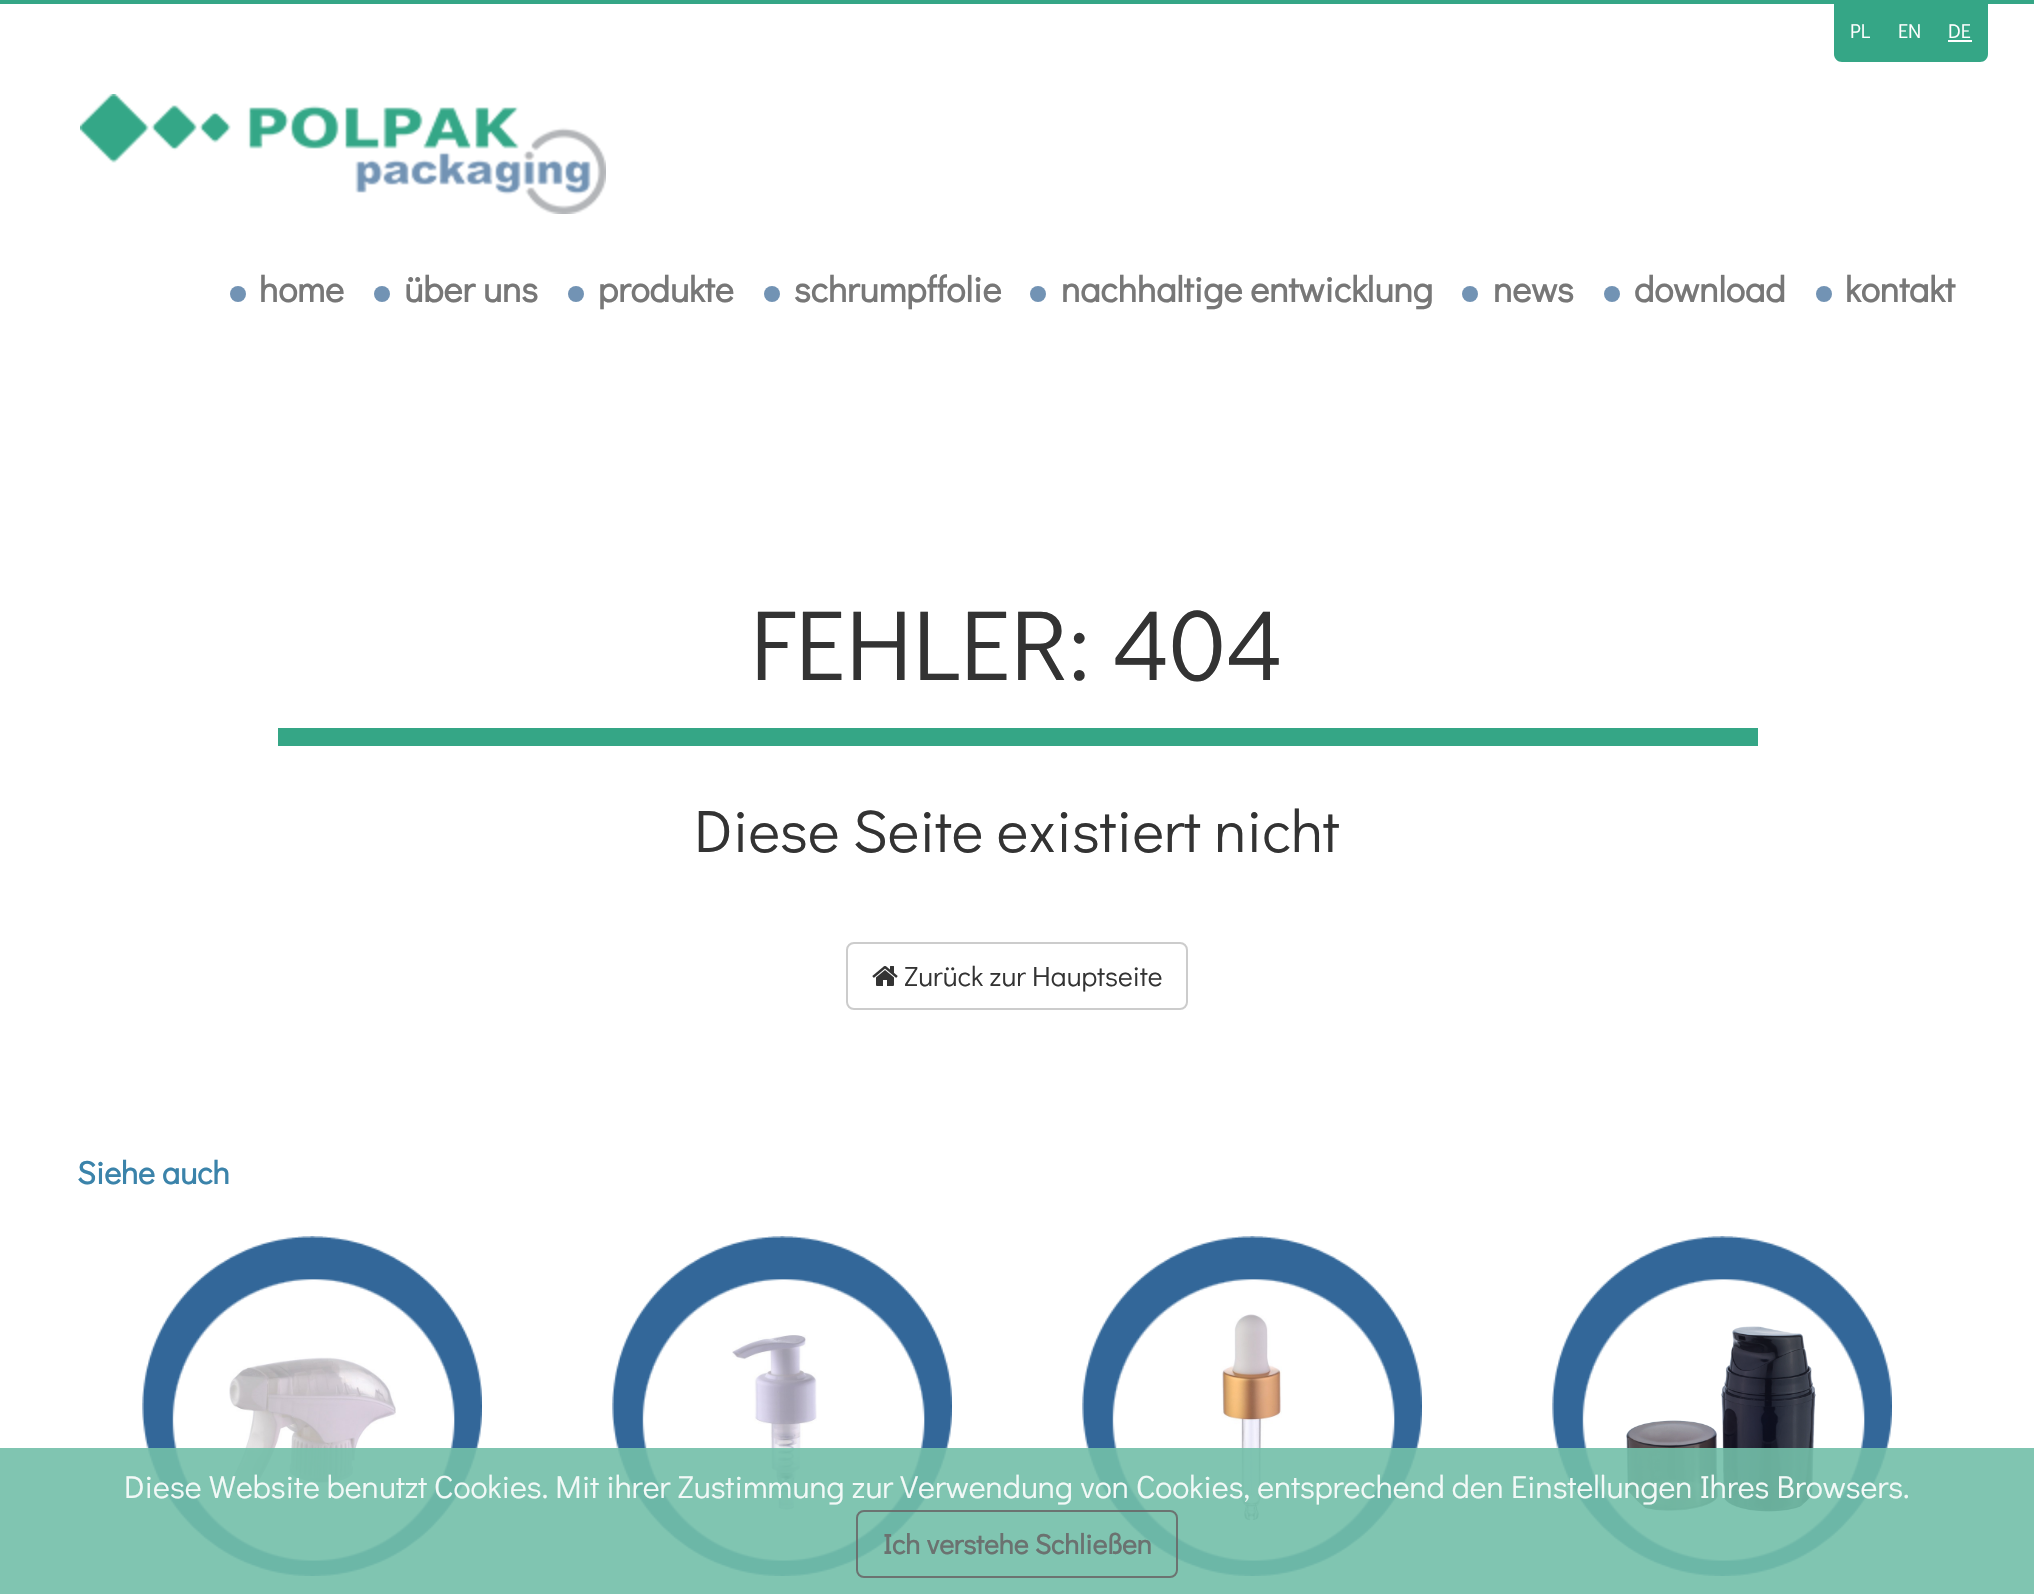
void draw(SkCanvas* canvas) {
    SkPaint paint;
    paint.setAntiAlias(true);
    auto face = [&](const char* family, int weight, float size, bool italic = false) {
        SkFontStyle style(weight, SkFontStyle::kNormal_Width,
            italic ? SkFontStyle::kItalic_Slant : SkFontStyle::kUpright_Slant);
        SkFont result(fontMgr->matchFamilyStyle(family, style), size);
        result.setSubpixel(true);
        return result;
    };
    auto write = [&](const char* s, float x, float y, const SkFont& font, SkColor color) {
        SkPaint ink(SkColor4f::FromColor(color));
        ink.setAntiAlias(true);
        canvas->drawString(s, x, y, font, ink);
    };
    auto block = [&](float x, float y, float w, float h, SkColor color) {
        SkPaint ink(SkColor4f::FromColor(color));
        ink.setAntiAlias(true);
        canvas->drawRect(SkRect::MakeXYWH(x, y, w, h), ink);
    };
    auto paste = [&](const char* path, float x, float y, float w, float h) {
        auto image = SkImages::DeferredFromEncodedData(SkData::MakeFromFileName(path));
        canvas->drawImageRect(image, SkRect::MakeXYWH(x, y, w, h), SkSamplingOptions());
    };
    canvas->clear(SK_ColorWHITE);
    block(0, 0, 2034, 4, SkColorSetRGB(53, 166, 134));
    paint.setColor(SkColorSetRGB(53, 166, 134));
    canvas->drawPath(SkPathBuilder().moveTo(1834, 4).lineTo(1988, 4).lineTo(1988, 54).cubicTo(1988, 58.5f, 1984.5f, 62, 1980, 62).lineTo(1842, 62).cubicTo(1837.5f, 62, 1834, 58.5f, 1834, 54).close().detach(), paint);
    auto kFont1 = face("Didact Gothic", 400, 20);
    write("PL", 1850, 38, kFont1, SK_ColorWHITE);
    write("EN", 1898, 38, kFont1, SK_ColorWHITE);
    write("DE", 1948, 38, kFont1, SK_ColorWHITE);
    block(1948, 40, 24, 2, SK_ColorWHITE);
    paste("pic1.png", 80, 94, 526, 120);
    paint.setColor(SkColorSetRGB(114, 147, 180));
    canvas->drawCircle(238, 294, 8, paint);
    auto kFont2 = face("Didact Gothic", 700, 36);
    write("home", 259, 302, kFont2, SkColorSetRGB(119, 119, 119));
    canvas->drawCircle(382, 294, 8, paint);
    write("über uns", 404, 302, kFont2, SkColorSetRGB(119, 119, 119));
    canvas->drawCircle(576, 294, 8, paint);
    write("produkte", 598, 302, kFont2, SkColorSetRGB(119, 119, 119));
    canvas->drawCircle(772, 294, 8, paint);
    write("schrumpffolie", 794, 302, kFont2, SkColorSetRGB(119, 119, 119));
    canvas->drawCircle(1038, 294, 8, paint);
    write("nachhaltige entwicklung", 1061, 302, kFont2, SkColorSetRGB(119, 119, 119));
    canvas->drawCircle(1470, 294, 8, paint);
    write("news", 1493, 302, kFont2, SkColorSetRGB(119, 119, 119));
    canvas->drawCircle(1612, 294, 8, paint);
    write("download", 1634, 302, kFont2, SkColorSetRGB(119, 119, 119));
    canvas->drawCircle(1824, 294, 8, paint);
    write("kontakt", 1845, 302, kFont2, SkColorSetRGB(119, 119, 119));
    paste("pic3.png", 142, 1236, 340, 340);
    paste("pic4.png", 229, 1357, 167, 140);
    paste("pic5.png", 612, 1236, 340, 340);
    paste("pic6.png", 732, 1335, 85, 175);
    paste("pic7.png", 1082, 1236, 340, 340);
    paste("pic8.png", 1221, 1314, 61, 207);
    paste("pic5.png", 1552, 1236, 340, 340);
    paste("pic9.png", 1626, 1326, 190, 186);
    block(0, 1448, 2034, 146, SkColorSetARGB(230, 114, 191, 168));
    auto kFont3 = face("Didact Gothic", 400, 32);
    write("Diese Website benutzt Cookies. Mit ihrer Zustimmung zur Verwendung von Cookies, entsprechend den Einstellungen Ihres Browsers.", 124, 1498, kFont3, SkColorSetRGB(242, 249, 247));
    paint.setStyle(SkPaint::kStroke_Style);
    paint.setStrokeWidth(2);
    paint.setColor(SkColorSetARGB(230, 105, 105, 105));
    canvas->drawRoundRect(SkRect::MakeXYWH(857, 1511, 320, 66), 7, 7, paint);
    auto kFont4 = face("Didact Gothic", 700, 28);
    write("Ich verstehe Schließen", 883, 1554, kFont4, SkColorSetRGB(107, 114, 112));
    block(278, 728, 1480, 18, SkColorSetRGB(53, 166, 134));
    auto kFont5 = face("Didact Gothic", 400, 100);
    write("FEHLER: 404", 750, 680, kFont5, SkColorSetRGB(51, 51, 51));
    auto kFont6 = face("Didact Gothic", 400, 60);
    write("Diese Seite existiert nicht", 694, 852, kFont6, SkColorSetRGB(51, 51, 51));
    paint.setColor(SkColorSetRGB(204, 204, 204));
    canvas->drawRoundRect(SkRect::MakeXYWH(847, 943, 340, 66), 7, 7, paint);
    paste("pic2.png", 872, 966, 26, 20);
    auto kFont7 = face("Didact Gothic", 400, 28);
    write("Zurück zur Hauptseite", 904, 986, kFont7, SkColorSetRGB(51, 51, 51));
    auto kFont8 = face("Didact Gothic", 700, 32);
    write("Siehe auch", 77, 1184, kFont8, SkColorSetRGB(59, 131, 170));
}
